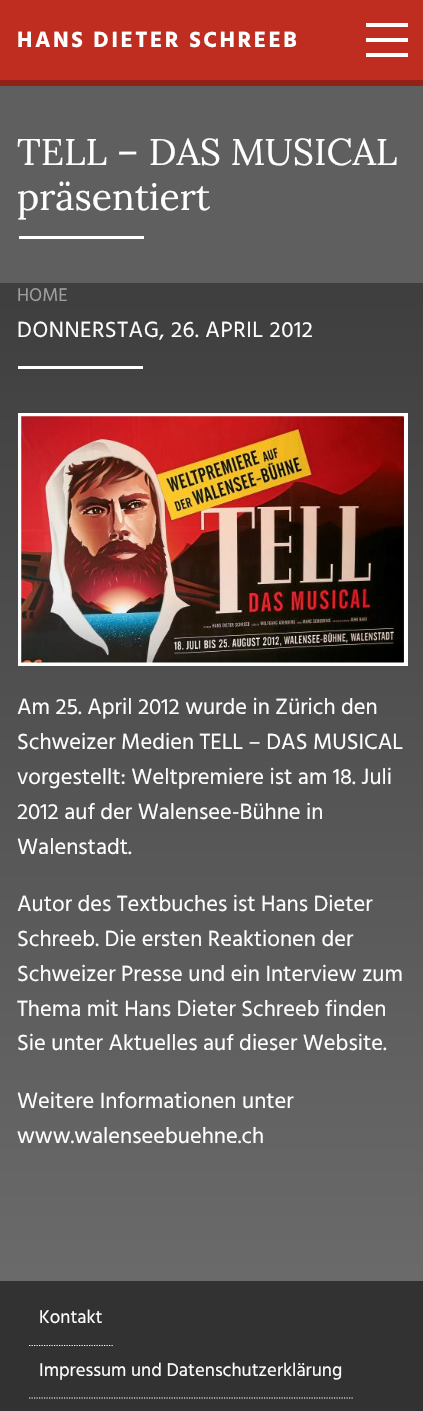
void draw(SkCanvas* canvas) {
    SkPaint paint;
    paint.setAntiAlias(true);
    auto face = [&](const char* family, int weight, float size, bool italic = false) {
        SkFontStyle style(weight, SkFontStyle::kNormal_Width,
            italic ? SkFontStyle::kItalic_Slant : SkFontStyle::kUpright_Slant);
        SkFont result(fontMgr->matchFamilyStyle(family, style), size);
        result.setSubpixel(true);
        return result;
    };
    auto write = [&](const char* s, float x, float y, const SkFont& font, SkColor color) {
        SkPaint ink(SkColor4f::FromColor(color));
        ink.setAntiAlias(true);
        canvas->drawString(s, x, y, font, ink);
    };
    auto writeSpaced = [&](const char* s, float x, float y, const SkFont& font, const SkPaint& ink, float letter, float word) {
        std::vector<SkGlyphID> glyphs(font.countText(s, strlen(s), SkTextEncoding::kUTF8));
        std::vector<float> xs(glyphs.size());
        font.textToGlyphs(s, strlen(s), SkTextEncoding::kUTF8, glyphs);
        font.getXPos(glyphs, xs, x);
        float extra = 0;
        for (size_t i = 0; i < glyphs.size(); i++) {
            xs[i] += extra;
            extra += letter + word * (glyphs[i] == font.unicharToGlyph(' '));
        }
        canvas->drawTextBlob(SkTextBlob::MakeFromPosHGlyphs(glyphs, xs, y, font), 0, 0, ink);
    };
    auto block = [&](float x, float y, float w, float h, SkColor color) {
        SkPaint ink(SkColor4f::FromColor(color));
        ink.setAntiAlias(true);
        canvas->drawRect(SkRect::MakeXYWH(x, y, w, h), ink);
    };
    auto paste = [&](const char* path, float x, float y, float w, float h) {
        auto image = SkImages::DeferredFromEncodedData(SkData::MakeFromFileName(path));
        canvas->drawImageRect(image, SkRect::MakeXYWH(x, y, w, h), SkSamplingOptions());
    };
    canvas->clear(SK_ColorWHITE);
    {
        const SkColor colors[] = {SkColorSetRGB(112, 112, 112), SkColorSetRGB(50, 50, 50)};
        const float stops[] = {0, 1};
        const SkPoint ends[] = {{212, 1411}, {212, 0}};
        paint.setShader(SkGradientShader::MakeLinear(ends, colors, stops, 2, SkTileMode::kClamp));
        paint.setAlpha(255);
    }
    canvas->drawRect(SkRect::MakeXYWH(0, 283, 423, 998), paint);
    block(0, 0, 423, 80, SkColorSetRGB(190, 45, 31));
    block(0, 80, 423, 6, SkColorSetRGB(146, 34, 23));
    auto kFont1 = face("Hind", 700, 22.5f);
    paint.setShader(nullptr);
    paint.setColor(SK_ColorWHITE);
    writeSpaced("HANS DIETER SCHREEB", 17, 47, kFont1, paint, 2.5f, 0);
    block(366, 38, 42, 4, SK_ColorWHITE);
    block(366, 23, 42, 4, SK_ColorWHITE);
    block(366, 53, 42, 4, SK_ColorWHITE);
    block(0, 86, 423, 197, SkColorSetRGB(95, 95, 95));
    auto kFont2 = face("Lora", 400, 37.25f);
    write("TELL – DAS MUSICAL", 17, 165, kFont2, SK_ColorWHITE);
    write("präsentiert", 17, 210, kFont2, SK_ColorWHITE);
    block(19, 236, 125, 3, SK_ColorWHITE);
    auto kFont3 = face("Hind", 400, 18.75f);
    write("HOME", 17, 301, kFont3, SkColorSetRGB(159, 159, 159));
    auto kFont4 = face("Hind", 400, 22.5f);
    writeSpaced("DONNERSTAG, 26. APRIL 2012", 17, 337, kFont4, paint, 0.55f, 0);
    block(18, 366, 125, 3, SK_ColorWHITE);
    paint.setStyle(SkPaint::kStroke_Style);
    paint.setStrokeWidth(4);
    canvas->drawRect(SkRect::MakeXYWH(20, 415, 386, 249), paint);
    paste("pic1.png", 21, 416, 383, 247);
    write("Am 25. April 2012 wurde in Zürich den", 17, 714, kFont4, SK_ColorWHITE);
    write("Schweizer Medien TELL – DAS MUSICAL", 17, 749, kFont4, SK_ColorWHITE);
    write("vorgestellt: Weltpremiere ist am 18. Juli", 17, 784, kFont4, SK_ColorWHITE);
    write("2012 auf der Walensee-Bühne in", 17, 819, kFont4, SK_ColorWHITE);
    write("Walenstadt.", 17, 854, kFont4, SK_ColorWHITE);
    write("Autor des Textbuches ist Hans Dieter", 17, 911, kFont4, SK_ColorWHITE);
    write("Schreeb. Die ersten Reaktionen der", 17, 946, kFont4, SK_ColorWHITE);
    write("Schweizer Presse und ein Interview zum", 17, 981, kFont4, SK_ColorWHITE);
    write("Thema mit Hans Dieter Schreeb finden", 17, 1016, kFont4, SK_ColorWHITE);
    write("Sie unter Aktuelles auf dieser Website.", 17, 1050, kFont4, SK_ColorWHITE);
    write("Weitere Informationen unter", 17, 1108, kFont4, SK_ColorWHITE);
    write("www.walenseebuehne.ch", 17, 1143, kFont4, SK_ColorWHITE);
    block(0, 1281, 423, 130, SkColorSetRGB(50, 50, 50));
    paint.setStrokeWidth(1.2f);
    paint.setPathEffect(SkDashPathEffect::Make({{1.25f, 1.25f}}, 0));
    canvas->drawPath(SkPathBuilder().moveTo(29, 1345.5f).lineTo(114, 1345.5f).detach(), paint);
    paint.setPathEffect(nullptr);
    write("Kontakt", 39, 1323, kFont3, SK_ColorWHITE);
    paint.setPathEffect(SkDashPathEffect::Make({{1.25f, 1.25f}}, 0));
    canvas->drawPath(SkPathBuilder().moveTo(29, 1398).lineTo(354, 1398).detach(), paint);
    paint.setPathEffect(nullptr);
    write("Impressum und Datenschutzerklärung", 39, 1376, kFont3, SK_ColorWHITE);
}
